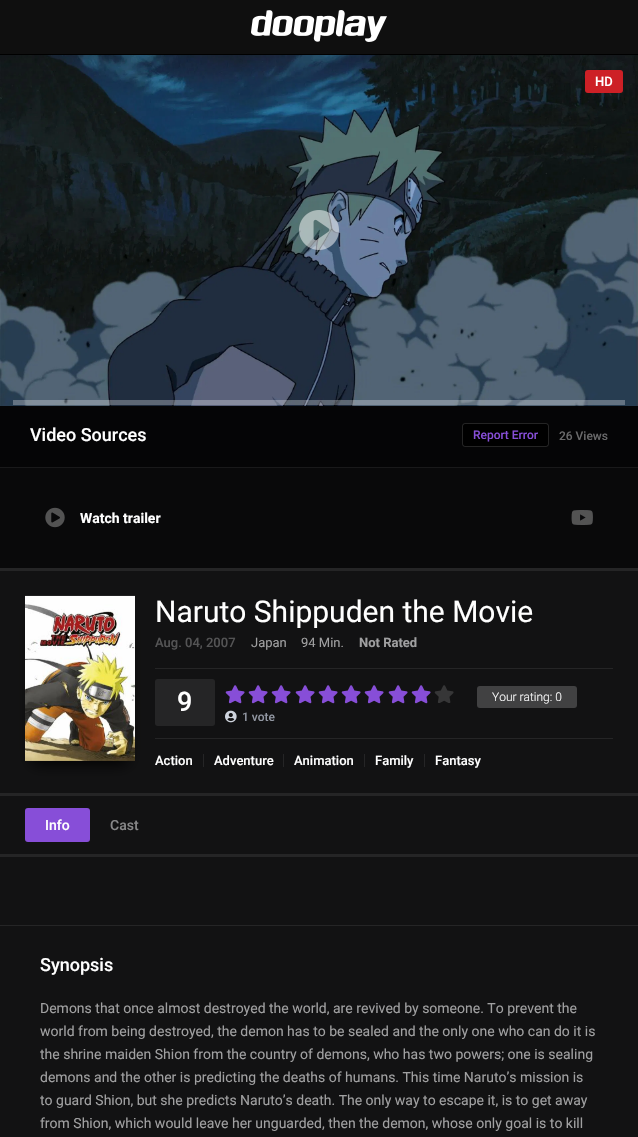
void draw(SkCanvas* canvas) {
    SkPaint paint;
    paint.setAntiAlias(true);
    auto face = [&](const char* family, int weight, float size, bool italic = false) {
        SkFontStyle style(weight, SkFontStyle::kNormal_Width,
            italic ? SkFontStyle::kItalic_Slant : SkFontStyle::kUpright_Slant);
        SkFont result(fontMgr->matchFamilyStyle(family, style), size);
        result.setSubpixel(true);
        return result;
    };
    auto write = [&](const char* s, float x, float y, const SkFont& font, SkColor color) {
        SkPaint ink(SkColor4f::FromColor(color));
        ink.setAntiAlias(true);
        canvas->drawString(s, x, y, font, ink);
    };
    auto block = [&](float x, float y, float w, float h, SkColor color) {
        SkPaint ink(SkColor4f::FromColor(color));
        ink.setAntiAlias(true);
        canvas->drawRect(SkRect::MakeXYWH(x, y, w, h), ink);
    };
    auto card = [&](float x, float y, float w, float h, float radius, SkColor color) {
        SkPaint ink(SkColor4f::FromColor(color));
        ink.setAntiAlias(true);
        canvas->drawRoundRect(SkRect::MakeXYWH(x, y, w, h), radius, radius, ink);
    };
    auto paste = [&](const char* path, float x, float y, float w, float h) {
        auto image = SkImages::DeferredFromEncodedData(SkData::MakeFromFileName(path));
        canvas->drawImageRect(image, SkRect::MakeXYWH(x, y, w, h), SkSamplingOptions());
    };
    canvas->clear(SkColorSetRGB(18, 18, 19));
    block(0, 0, 638, 54, SkColorSetRGB(15, 15, 15));
    block(0, 54, 638, 1, SK_ColorBLACK);
    paste("pic1.png", 251, 10, 136, 32);
    paste("pic2.png", 0, 55, 638, 351);
    card(585, 70, 38, 23, 3, SkColorSetRGB(205, 32, 38));
    auto kFont1 = face("Roboto", 500, 13);
    write("HD", 595, 86, kFont1, SK_ColorWHITE);
    paste("pic3.png", 299, 210, 40, 40);
    block(13, 400, 612, 5, SkColorSetARGB(71, 255, 255, 255));
    block(0, 568, 638, 3, SkColorSetRGB(37, 37, 38));
    block(0, 406, 638, 61, SkColorSetRGB(5, 5, 6));
    block(0, 467, 638, 1, SkColorSetRGB(25, 25, 26));
    auto kFont2 = face("Roboto", 500, 18);
    write("Video Sources", 30, 441, kFont2, SK_ColorWHITE);
    card(462, 423, 87, 24, 3, SK_ColorBLACK);
    paint.setStyle(SkPaint::kStroke_Style);
    paint.setStrokeWidth(1);
    paint.setColor(SkColorSetARGB(36, 255, 255, 255));
    canvas->drawRoundRect(SkRect::MakeXYWH(462.5f, 423.5f, 86, 23), 2.5f, 2.5f, paint);
    auto kFont3 = face("Roboto", 500, 12);
    write("Report Error", 473, 439, kFont3, SkColorSetRGB(135, 78, 216));
    write("26 Views", 559, 440, kFont3, SkColorSetRGB(105, 105, 106));
    block(0, 468, 638, 100, SkColorSetRGB(9, 9, 10));
    paste("pic4.png", 45, 507, 20, 21);
    auto kFont4 = face("Roboto", 700, 14);
    write("Watch trailer", 80, 523, kFont4, SK_ColorWHITE);
    paste("pic5.png", 571, 510, 22, 15);
    block(0, 793, 638, 3, SkColorSetRGB(37, 37, 38));
    paint.setStyle(SkPaint::kFill_Style);
    paint.setColor(SK_ColorBLACK);
    paint.setMaskFilter(SkMaskFilter::MakeBlur(kNormal_SkBlurStyle, 7.5f));
    canvas->drawRect(SkRect::MakeXYWH(32, 613, 96, 151), paint);
    paint.setMaskFilter(nullptr);
    paste("pic6.png", 25, 595, 110, 166);
    auto kFont5 = face("Roboto", 400, 30);
    write("Naruto Shippuden the Movie", 155, 622, kFont5, SK_ColorWHITE);
    write("Aug. 04, 2007", 155, 647, kFont1, SkColorSetRGB(84, 84, 85));
    auto kFont6 = face("Roboto", 400, 13);
    write("Japan", 251, 647, kFont6, SkColorSetRGB(160, 160, 161));
    write("94 Min.", 301, 647, kFont6, SkColorSetRGB(160, 160, 161));
    auto kFont7 = face("Roboto", 700, 13);
    write("Not Rated", 359, 647, kFont7, SkColorSetRGB(160, 160, 161));
    block(155, 668, 458, 1, SkColorSetRGB(37, 37, 38));
    block(155, 738, 458, 1, SkColorSetRGB(37, 37, 38));
    paste("pic7.png", 225, 685, 20, 19);
    paste("pic7.png", 248, 685, 20, 19);
    paste("pic7.png", 271, 685, 20, 19);
    paste("pic7.png", 295, 685, 20, 19);
    paste("pic7.png", 318, 685, 20, 19);
    paste("pic7.png", 341, 685, 20, 19);
    paste("pic7.png", 364, 685, 20, 19);
    paste("pic7.png", 388, 685, 20, 19);
    paste("pic7.png", 411, 685, 20, 19);
    paste("pic8.png", 434, 685, 20, 18);
    card(155, 679, 60, 47, 3, SkColorSetRGB(37, 37, 38));
    auto kFont8 = face("Roboto", 500, 27);
    write("9", 177, 711, kFont8, SK_ColorWHITE);
    paste("pic9.png", 225, 710, 12, 13);
    write("1 vote", 242, 721, kFont3, SkColorSetRGB(146, 151, 162));
    card(477, 686, 100, 22, 3, SkColorSetRGB(65, 65, 66));
    auto kFont9 = face("Roboto", 300, 12);
    write("Your rating: 0", 492, 701, kFont9, SK_ColorWHITE);
    write("Action", 155, 765, kFont1, SK_ColorWHITE);
    block(203, 754, 1, 13, SkColorSetRGB(37, 37, 38));
    write("Adventure", 214, 765, kFont1, SK_ColorWHITE);
    block(283, 754, 1, 13, SkColorSetRGB(37, 37, 38));
    write("Animation", 294, 765, kFont1, SK_ColorWHITE);
    block(364, 754, 1, 13, SkColorSetRGB(37, 37, 38));
    write("Family", 375, 765, kFont1, SK_ColorWHITE);
    block(424, 754, 1, 13, SkColorSetRGB(37, 37, 38));
    write("Fantasy", 435, 765, kFont1, SK_ColorWHITE);
    block(0, 854, 638, 3, SkColorSetRGB(37, 37, 38));
    card(25, 808, 65, 34, 3, SkColorSetRGB(135, 78, 216));
    auto kFont10 = face("Roboto", 500, 14);
    write("Info", 45, 830, kFont10, SK_ColorWHITE);
    write("Cast", 110, 830, kFont10, SkColorSetRGB(136, 136, 137));
    block(0, 925, 638, 1, SkColorSetRGB(37, 37, 38));
    write("Synopsis", 40, 971, kFont2, SK_ColorWHITE);
    auto kFont11 = face("Roboto", 400, 14);
    write("Demons that once almost destroyed the world, are revived by someone. To prevent the", 40, 1013, kFont11, SkColorSetRGB(160, 160, 161));
    write("world from being destroyed, the demon has to be sealed and the only one who can do it is", 40, 1036, kFont11, SkColorSetRGB(160, 160, 161));
    write("the shrine maiden Shion from the country of demons, who has two powers; one is sealing", 40, 1059, kFont11, SkColorSetRGB(160, 160, 161));
    write("demons and the other is predicting the deaths of humans. This time Naruto’s mission is", 40, 1082, kFont11, SkColorSetRGB(160, 160, 161));
    write("to guard Shion, but she predicts Naruto’s death. The only way to escape it, is to get away", 40, 1105, kFont11, SkColorSetRGB(160, 160, 161));
    write("from Shion, which would leave her unguarded, then the demon, whose only goal is to kill", 40, 1128, kFont11, SkColorSetRGB(160, 160, 161));
}
